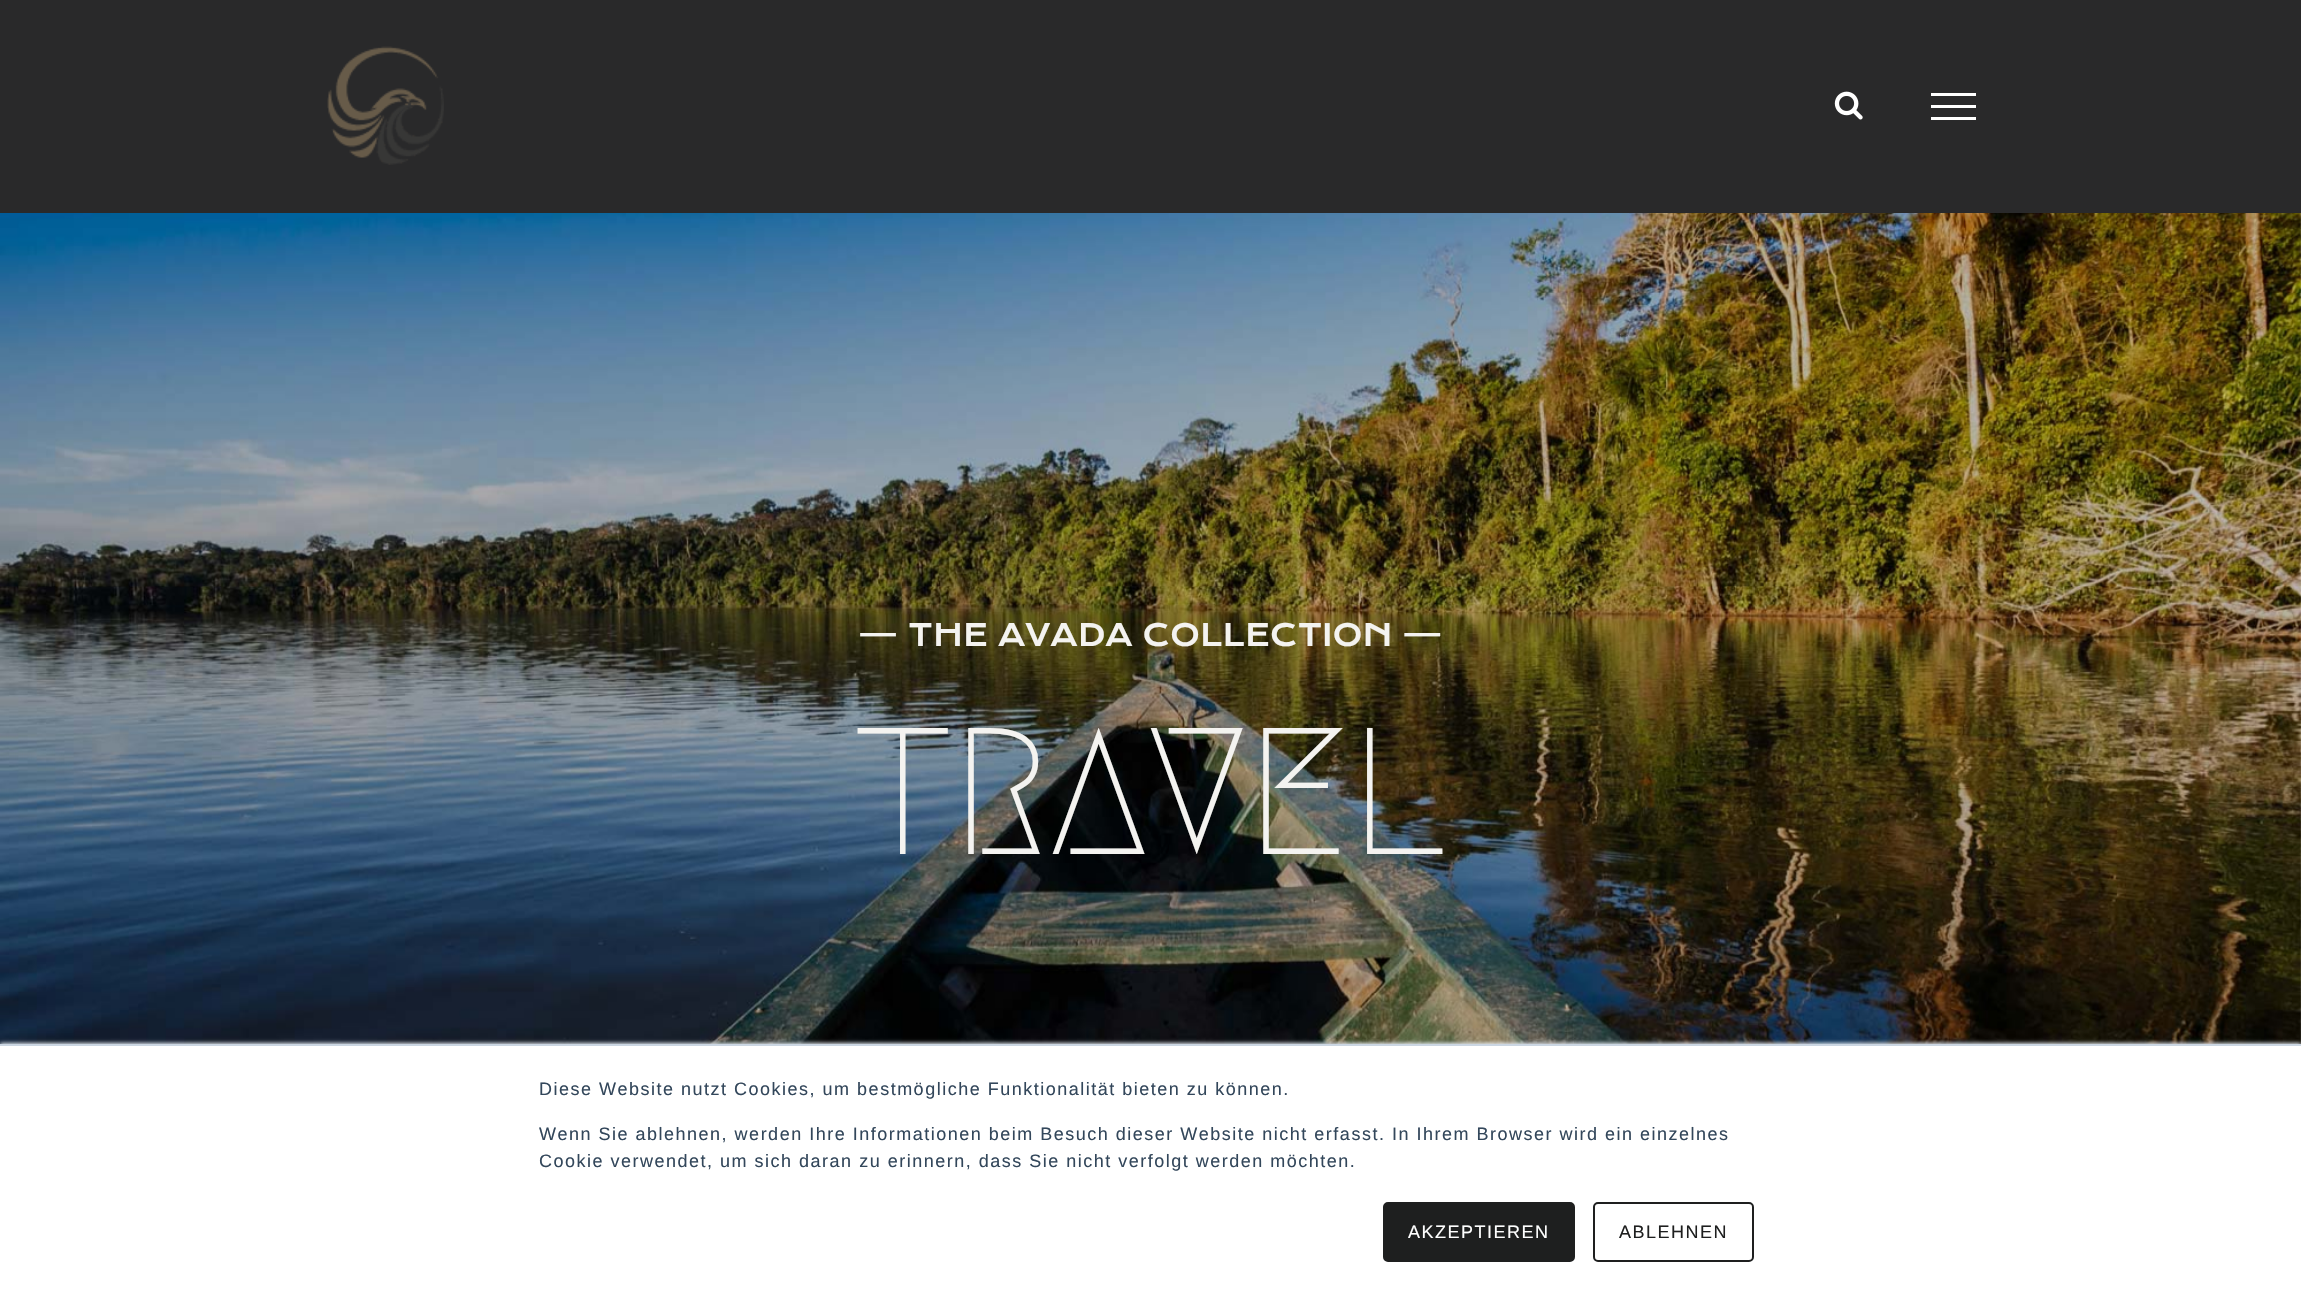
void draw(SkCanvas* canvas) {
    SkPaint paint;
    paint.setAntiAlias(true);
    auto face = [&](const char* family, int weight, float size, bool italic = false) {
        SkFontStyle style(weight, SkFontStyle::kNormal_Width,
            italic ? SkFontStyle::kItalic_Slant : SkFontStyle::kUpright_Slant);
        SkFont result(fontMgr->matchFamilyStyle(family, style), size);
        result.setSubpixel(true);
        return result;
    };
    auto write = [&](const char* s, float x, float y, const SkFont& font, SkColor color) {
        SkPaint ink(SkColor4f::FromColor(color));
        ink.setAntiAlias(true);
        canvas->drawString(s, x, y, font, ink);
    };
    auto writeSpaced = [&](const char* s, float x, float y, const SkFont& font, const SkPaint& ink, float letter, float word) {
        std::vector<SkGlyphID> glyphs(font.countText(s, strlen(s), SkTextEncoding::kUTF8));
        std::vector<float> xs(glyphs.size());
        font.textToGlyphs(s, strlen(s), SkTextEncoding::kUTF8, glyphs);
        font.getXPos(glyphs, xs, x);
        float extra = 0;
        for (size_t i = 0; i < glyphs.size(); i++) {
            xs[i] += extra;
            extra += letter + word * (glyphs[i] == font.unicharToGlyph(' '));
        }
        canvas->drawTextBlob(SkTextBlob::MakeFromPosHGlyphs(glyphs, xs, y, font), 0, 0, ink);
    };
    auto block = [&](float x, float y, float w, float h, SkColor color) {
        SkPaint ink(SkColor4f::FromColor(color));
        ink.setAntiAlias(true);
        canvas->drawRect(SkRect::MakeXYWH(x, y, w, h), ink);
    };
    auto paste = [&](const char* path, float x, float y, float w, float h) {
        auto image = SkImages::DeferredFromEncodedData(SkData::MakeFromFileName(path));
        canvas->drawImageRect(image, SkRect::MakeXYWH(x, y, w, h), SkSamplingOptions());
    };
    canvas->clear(SK_ColorWHITE);
    block(0, 0, 2301, 213, SkColorSetRGB(41, 41, 42));
    paste("pic1.png", 327, 46, 117, 119);
    paste("pic2.png", 1834, 91, 29, 29);
    block(1931, 93, 45, 3, SK_ColorWHITE);
    block(1931, 105, 45, 3, SK_ColorWHITE);
    block(1931, 117, 45, 3, SK_ColorWHITE);
    paste("pic3.png", 0, 213, 2301, 831);
    auto kFont1 = face("Krona One", 400, 30);
    write("— THE AVADA COLLECTION —", 858, 646, kFont1, SkColorSetRGB(244, 243, 240));
    auto kFont2 = face("Megrim", 500, 180);
    write("TRAVEL", 855, 854, kFont2, SkColorSetRGB(244, 243, 240));
    paint.setColor(SkColorSetRGB(234, 240, 246));
    paint.setMaskFilter(SkMaskFilter::MakeBlur(kNormal_SkBlurStyle, 2));
    canvas->drawRect(SkRect::MakeXYWH(0, 1043, 2301, 256), paint);
    paint.setMaskFilter(nullptr);
    block(0, 1046, 2301, 254, SK_ColorWHITE);
    block(0, 1044, 2301, 2, SkColorSetRGB(203, 214, 226));
    auto kFont3 = face("Liberation Sans", 400, 18);
    paint.setColor(SkColorSetRGB(51, 71, 91));
    writeSpaced("Diese Website nutzt Cookies, um bestmögliche Funktionalität bieten zu können.", 539, 1095, kFont3, paint, 1.5f, 0);
    writeSpaced("Wenn Sie ablehnen, werden Ihre Informationen beim Besuch dieser Website nicht erfasst. In Ihrem Browser wird ein einzelnes", 539, 1140, kFont3, paint, 1.5f, 0);
    writeSpaced("Cookie verwendet, um sich daran zu erinnern, dass Sie nicht verfolgt werden möchten.", 539, 1167, kFont3, paint, 1.5f, 0);
    paint.setColor(SkColorSetRGB(30, 31, 31));
    canvas->drawRoundRect(SkRect::MakeXYWH(1384, 1203, 190, 58), 4, 4, paint);
    paint.setStyle(SkPaint::kStroke_Style);
    paint.setStrokeWidth(2);
    canvas->drawRoundRect(SkRect::MakeXYWH(1384, 1203, 190, 58), 4, 4, paint);
    paint.setStyle(SkPaint::kFill_Style);
    paint.setColor(SK_ColorWHITE);
    writeSpaced("AKZEPTIEREN", 1408, 1238, kFont3, paint, 1.5f, 0);
    paint.setStyle(SkPaint::kStroke_Style);
    paint.setColor(SkColorSetRGB(30, 31, 31));
    canvas->drawRoundRect(SkRect::MakeXYWH(1594, 1203, 159, 58), 4, 4, paint);
    paint.setStyle(SkPaint::kFill_Style);
    writeSpaced("ABLEHNEN", 1619, 1238, kFont3, paint, 1.5f, 0);
}
